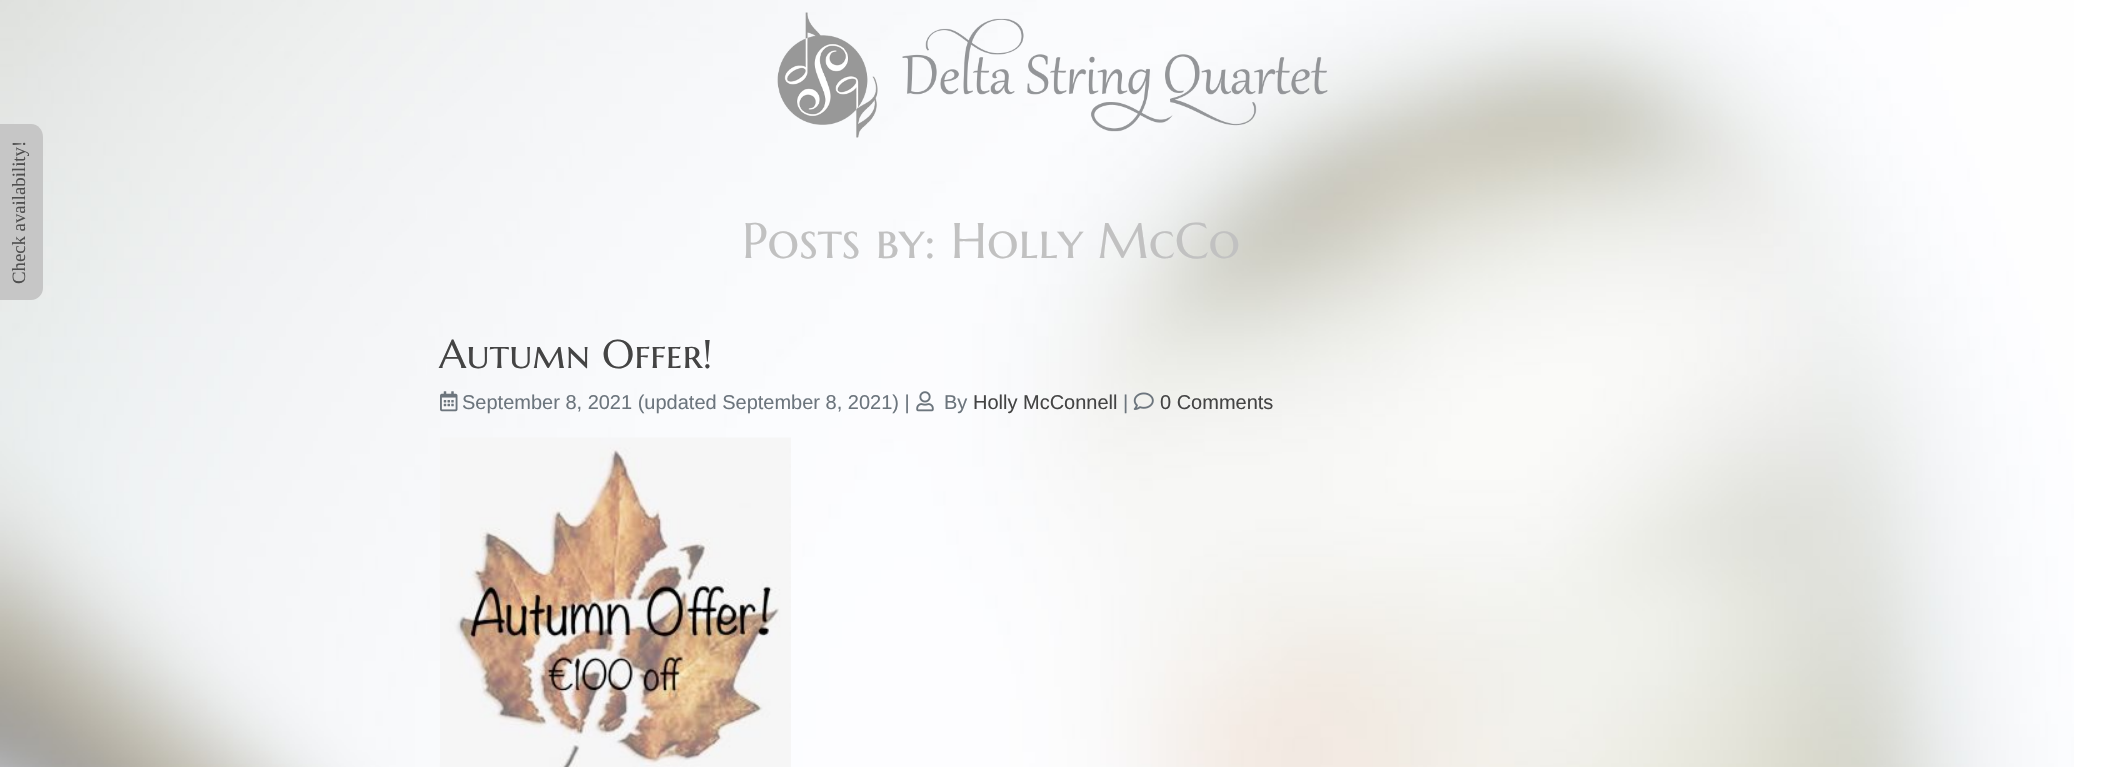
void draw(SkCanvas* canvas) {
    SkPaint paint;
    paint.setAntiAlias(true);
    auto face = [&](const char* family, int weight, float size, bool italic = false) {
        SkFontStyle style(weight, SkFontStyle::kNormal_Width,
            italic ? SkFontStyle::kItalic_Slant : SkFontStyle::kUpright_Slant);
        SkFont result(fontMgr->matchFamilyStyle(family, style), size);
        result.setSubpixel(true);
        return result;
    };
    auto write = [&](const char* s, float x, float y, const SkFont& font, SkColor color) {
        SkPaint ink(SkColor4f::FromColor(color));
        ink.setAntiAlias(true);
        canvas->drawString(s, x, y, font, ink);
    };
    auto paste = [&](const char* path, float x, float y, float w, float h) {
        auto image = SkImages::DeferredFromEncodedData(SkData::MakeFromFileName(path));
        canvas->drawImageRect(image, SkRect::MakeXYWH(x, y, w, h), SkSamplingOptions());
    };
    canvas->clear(SK_ColorWHITE);
    paste("pic1.png", 0, 0, 2074, 767);
    paint.setColor(SkColorSetRGB(198, 198, 198));
    canvas->drawPath(SkPathBuilder().moveTo(-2, 300).lineTo(-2, 124).lineTo(31, 124).cubicTo(38, 124, 43, 130, 43, 137).lineTo(43, 288).cubicTo(43, 294, 38, 300, 31, 300).close().detach(), paint);
    auto kFont1 = face("Liberation Serif", 400, 18.75f);
    canvas->save();
    canvas->rotate(-90, 25, 284);
    write("Check availability!", 25, 284, kFont1, SkColorSetRGB(79, 79, 79));
    canvas->restore();
    paste("pic2.png", 777, 12, 551, 126);
    auto kFont2 = face("Marcellus SC", 400, 50);
    write("Posts by: Holly McCo", 742, 258, kFont2, SkColorSetRGB(193, 193, 193));
    auto kFont3 = face("Marcellus SC", 400, 40);
    write("Autumn Offer!", 439, 368, kFont3, SkColorSetRGB(68, 68, 68));
    paste("pic3.png", 440, 391, 18, 21);
    auto kFont4 = face("Liberation Sans", 400, 20);
    write("September 8, 2021 (updated September 8, 2021) |", 462, 409, kFont4, SkColorSetRGB(108, 117, 125));
    paste("pic4.png", 916, 391, 18, 21);
    write("By", 944, 409, kFont4, SkColorSetRGB(108, 117, 125));
    write("Holly McConnell", 973, 409, kFont4, SkColorSetRGB(68, 68, 68));
    write("|", 1123, 409, kFont4, SkColorSetRGB(108, 117, 125));
    paste("pic5.png", 1133, 392, 21, 18);
    write("0 Comments", 1160, 409, kFont4, SkColorSetRGB(68, 68, 68));
    paste("pic6.png", 440, 437, 351, 330);
}
